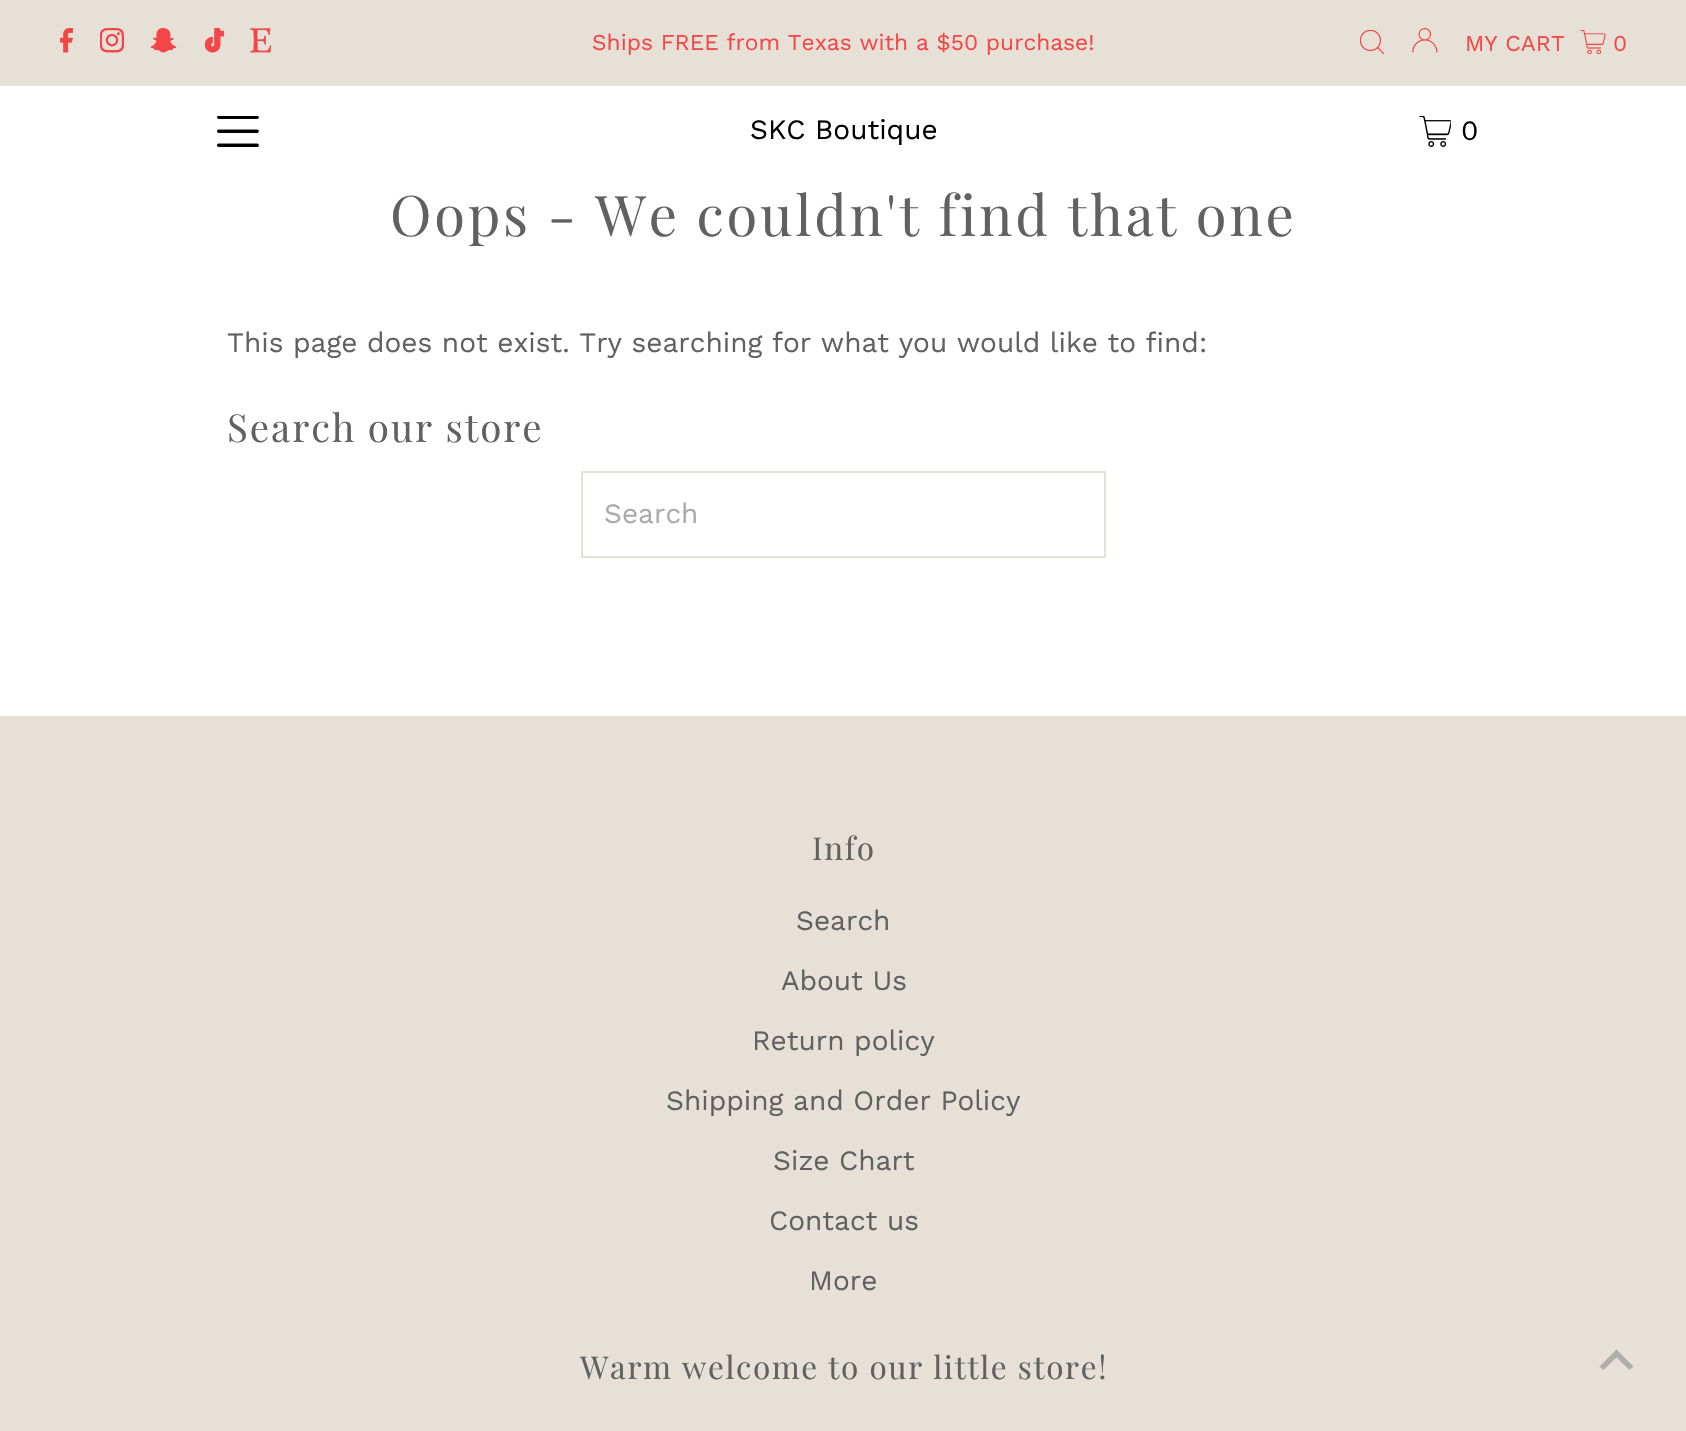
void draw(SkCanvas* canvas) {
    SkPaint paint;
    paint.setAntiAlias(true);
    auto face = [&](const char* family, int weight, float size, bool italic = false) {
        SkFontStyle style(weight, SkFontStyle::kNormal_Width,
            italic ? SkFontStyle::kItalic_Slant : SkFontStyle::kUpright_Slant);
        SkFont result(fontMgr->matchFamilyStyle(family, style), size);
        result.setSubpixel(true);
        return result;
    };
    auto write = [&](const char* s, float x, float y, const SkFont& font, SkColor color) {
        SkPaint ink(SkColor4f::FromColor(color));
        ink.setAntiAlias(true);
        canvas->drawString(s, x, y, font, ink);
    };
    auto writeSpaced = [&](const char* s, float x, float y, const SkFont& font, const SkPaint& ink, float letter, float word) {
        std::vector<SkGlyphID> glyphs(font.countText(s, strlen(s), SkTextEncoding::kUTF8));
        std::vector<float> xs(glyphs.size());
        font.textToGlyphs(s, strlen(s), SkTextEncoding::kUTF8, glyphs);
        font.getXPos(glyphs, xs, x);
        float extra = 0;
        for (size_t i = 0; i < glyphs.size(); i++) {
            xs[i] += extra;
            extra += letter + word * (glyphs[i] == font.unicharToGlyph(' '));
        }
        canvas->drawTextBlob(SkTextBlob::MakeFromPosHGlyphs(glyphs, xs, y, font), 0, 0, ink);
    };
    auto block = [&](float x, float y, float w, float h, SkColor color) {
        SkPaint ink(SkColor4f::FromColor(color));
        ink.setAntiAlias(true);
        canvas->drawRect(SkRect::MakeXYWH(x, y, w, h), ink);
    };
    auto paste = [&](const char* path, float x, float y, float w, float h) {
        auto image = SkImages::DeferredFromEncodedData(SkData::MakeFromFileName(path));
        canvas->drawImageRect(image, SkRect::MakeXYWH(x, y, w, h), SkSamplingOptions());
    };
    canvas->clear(SK_ColorWHITE);
    block(0, 0, 1686, 86, SkColorSetRGB(230, 224, 215));
    paste("pic1.png", 60, 28, 13, 25);
    paste("pic2.png", 100, 28, 24, 25);
    paste("pic3.png", 151, 28, 26, 25);
    paste("pic4.png", 205, 28, 19, 25);
    paste("pic5.png", 250, 28, 21, 25);
    auto kFont1 = face("Work Sans", 400, 22.75f);
    write("Ships FREE from Texas with a $50 purchase!", 592, 50, kFont1, SkColorSetRGB(244, 70, 70));
    paste("pic6.png", 1360, 30, 24, 24);
    paste("pic7.png", 1412, 28, 26, 25);
    write("MY CART", 1465, 51, kFont1, SkColorSetRGB(244, 70, 70));
    paste("pic8.png", 1580, 30, 26, 24);
    write("0", 1613, 51, kFont1, SkColorSetRGB(244, 70, 70));
    paste("pic9.png", 217, 116, 42, 31);
    auto kFont2 = face("Work Sans", 400, 28);
    write("SKC Boutique", 750, 139, kFont2, SK_ColorBLACK);
    paste("pic10.png", 1419, 116, 32, 31);
    write("0", 1461, 140, kFont2, SK_ColorBLACK);
    auto kFont3 = face("Playfair Display", 400, 56);
    paint.setColor(SkColorSetRGB(97, 97, 97));
    writeSpaced("Oops - We couldn't find that one", 390, 236, kFont3, paint, 2.8f, 0);
    write("This page does not exist. Try searching for what you would like to find:", 227, 352, kFont2, SkColorSetRGB(97, 97, 97));
    auto kFont4 = face("Playfair Display", 400, 38.5f);
    writeSpaced("Search our store", 227, 442, kFont4, paint, 1.9f, 0);
    paint.setStyle(SkPaint::kStroke_Style);
    paint.setStrokeWidth(2);
    paint.setColor(SkColorSetRGB(230, 224, 215));
    canvas->drawRect(SkRect::MakeXYWH(582, 472, 523, 85), paint);
    write("Search", 604, 523, kFont2, SkColorSetRGB(170, 170, 170));
    block(0, 716, 1686, 715, SkColorSetRGB(230, 224, 215));
    auto kFont5 = face("Playfair Display", 400, 31.5f);
    paint.setStyle(SkPaint::kFill_Style);
    paint.setColor(SkColorSetRGB(97, 97, 97));
    writeSpaced("Info", 812, 860, kFont5, paint, 1.6f, 0);
    write("Search", 796, 930, kFont2, SkColorSetRGB(97, 97, 97));
    write("About Us", 781, 990, kFont2, SkColorSetRGB(97, 97, 97));
    write("Return policy", 752, 1050, kFont2, SkColorSetRGB(97, 97, 97));
    write("Shipping and Order Policy", 666, 1110, kFont2, SkColorSetRGB(97, 97, 97));
    write("Size Chart", 773, 1170, kFont2, SkColorSetRGB(97, 97, 97));
    write("Contact us", 769, 1230, kFont2, SkColorSetRGB(97, 97, 97));
    write("More", 809, 1290, kFont2, SkColorSetRGB(97, 97, 97));
    writeSpaced("Warm welcome to our little store!", 580, 1379, kFont5, paint, 1.6f, 0);
    paint.setColor(SkColorSetRGB(177, 173, 168));
    canvas->drawPath(SkPathBuilder().moveTo(1616.5f, 1349.5f).lineTo(1599.5f, 1366.5f).lineTo(1603.5f, 1370).lineTo(1616.5f, 1357.5f).lineTo(1629.5f, 1370).lineTo(1633.5f, 1366.5f).close().detach(), paint);
}
